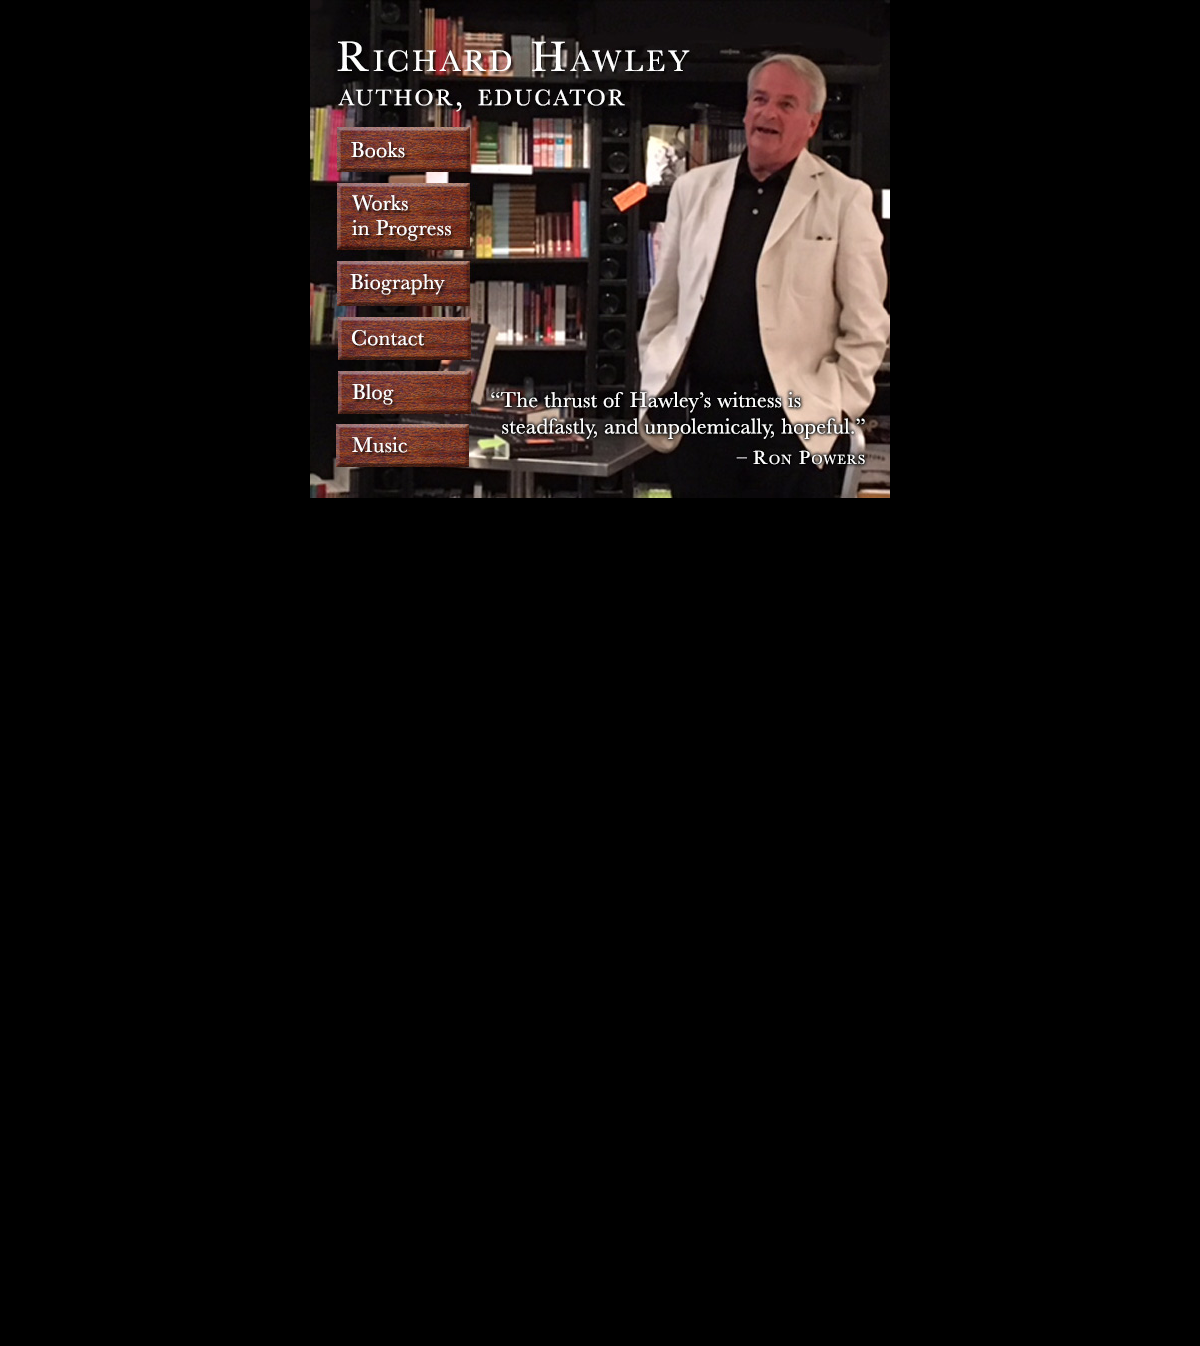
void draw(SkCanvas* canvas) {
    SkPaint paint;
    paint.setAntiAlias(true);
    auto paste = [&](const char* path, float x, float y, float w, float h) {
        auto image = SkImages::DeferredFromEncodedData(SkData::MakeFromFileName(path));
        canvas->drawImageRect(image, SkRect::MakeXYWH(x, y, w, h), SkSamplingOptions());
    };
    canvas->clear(SK_ColorBLACK);
    paste("pic1.png", 310, 0, 580, 127);
    paste("pic2.png", 310, 127, 26, 341);
    paste("pic3.png", 336, 127, 133, 45);
    paste("pic4.png", 469, 127, 421, 341);
    paste("pic5.png", 336, 172, 133, 11);
    paste("pic6.png", 336, 183, 133, 66);
    paste("pic7.png", 336, 249, 133, 12);
    paste("pic8.png", 336, 261, 133, 45);
    paste("pic9.png", 336, 306, 133, 11);
    paste("pic10.png", 336, 317, 133, 43);
    paste("pic11.png", 336, 360, 133, 11);
    paste("pic12.png", 336, 371, 133, 43);
    paste("pic13.png", 336, 414, 133, 10);
    paste("pic14.png", 336, 424, 133, 44);
    paste("pic15.png", 310, 468, 580, 30);
}
